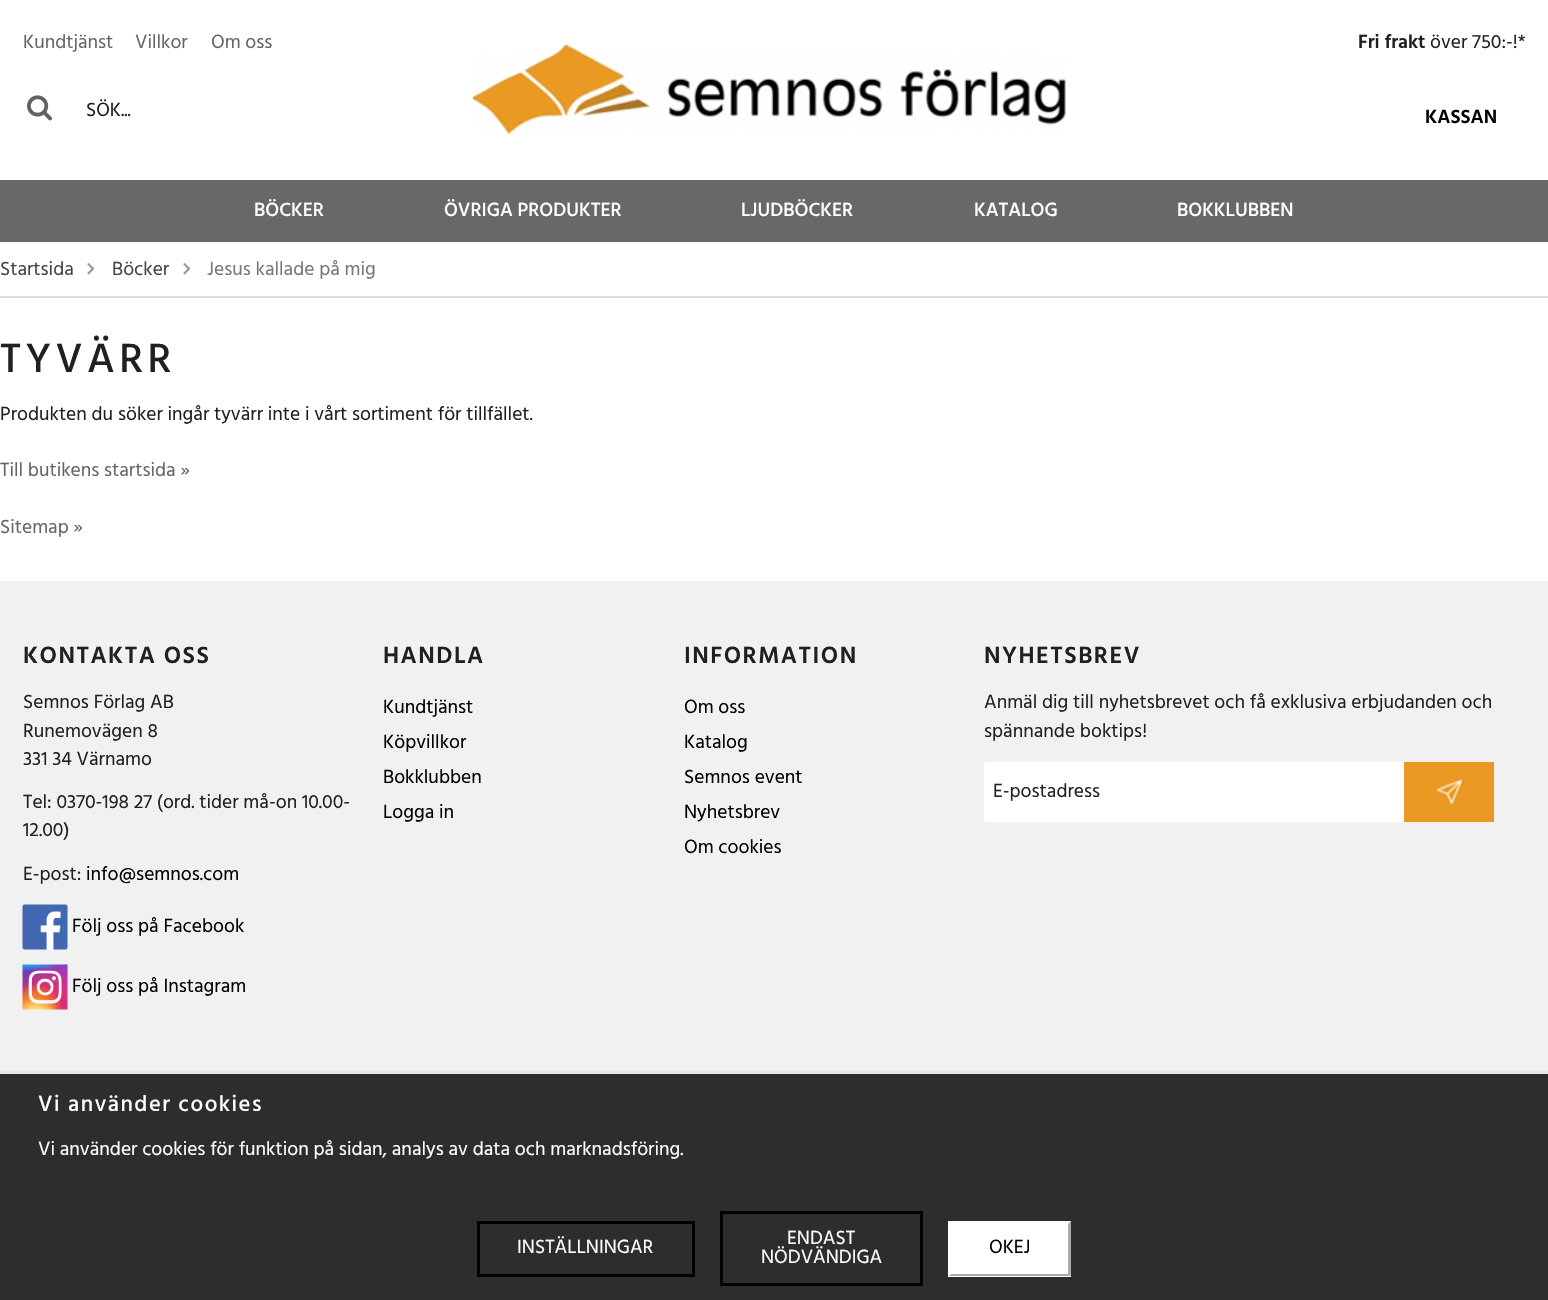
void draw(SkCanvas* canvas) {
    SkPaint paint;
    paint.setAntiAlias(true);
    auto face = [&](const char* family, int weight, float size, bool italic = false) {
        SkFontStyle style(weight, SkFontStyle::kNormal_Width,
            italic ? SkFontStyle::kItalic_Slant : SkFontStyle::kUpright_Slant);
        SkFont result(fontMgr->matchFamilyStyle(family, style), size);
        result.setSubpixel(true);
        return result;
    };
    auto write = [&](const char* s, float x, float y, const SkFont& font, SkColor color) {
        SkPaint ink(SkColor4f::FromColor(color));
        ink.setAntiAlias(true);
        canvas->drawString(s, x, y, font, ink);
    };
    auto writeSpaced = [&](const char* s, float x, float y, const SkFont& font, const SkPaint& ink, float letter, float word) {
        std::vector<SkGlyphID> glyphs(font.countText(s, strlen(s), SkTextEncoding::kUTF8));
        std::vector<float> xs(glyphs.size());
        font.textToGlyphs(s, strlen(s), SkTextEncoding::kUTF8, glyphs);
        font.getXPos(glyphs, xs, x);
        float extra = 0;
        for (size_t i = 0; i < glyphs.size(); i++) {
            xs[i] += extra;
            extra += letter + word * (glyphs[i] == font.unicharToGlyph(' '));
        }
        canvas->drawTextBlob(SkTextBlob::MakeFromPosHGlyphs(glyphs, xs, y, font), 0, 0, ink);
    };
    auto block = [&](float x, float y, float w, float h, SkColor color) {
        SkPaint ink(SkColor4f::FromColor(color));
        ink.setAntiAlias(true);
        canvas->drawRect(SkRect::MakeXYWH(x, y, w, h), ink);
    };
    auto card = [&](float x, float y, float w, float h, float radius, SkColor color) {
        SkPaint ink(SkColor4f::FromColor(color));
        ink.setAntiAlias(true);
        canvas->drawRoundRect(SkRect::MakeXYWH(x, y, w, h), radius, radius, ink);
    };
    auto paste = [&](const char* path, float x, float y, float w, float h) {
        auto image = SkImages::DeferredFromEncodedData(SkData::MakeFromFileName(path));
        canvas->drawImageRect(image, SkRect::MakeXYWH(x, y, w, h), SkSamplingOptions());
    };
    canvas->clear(SK_ColorWHITE);
    auto kFont1 = face("Hind", 400, 19.5f);
    write("Kundtjänst", 23, 48, kFont1, SkColorSetRGB(102, 102, 102));
    write("Villkor", 135, 48, kFont1, SkColorSetRGB(102, 102, 102));
    write("Om oss", 211, 48, kFont1, SkColorSetRGB(102, 102, 102));
    paste("pic1.png", 27, 95, 25, 26);
    write("SÖK...", 86, 116, kFont1, SkColorSetRGB(35, 31, 32));
    paste("pic2.png", 472, 45, 594, 89);
    auto kFont2 = face("Hind", 600, 19.5f);
    write("Fri frakt", 1358, 48, kFont2, SkColorSetRGB(35, 31, 32));
    write("över 750:-!*", 1430, 48, kFont1, SkColorSetRGB(35, 31, 32));
    write("KASSAN", 1425, 123, kFont2, SK_ColorBLACK);
    block(0, 180, 1548, 62, SkColorSetRGB(103, 104, 105));
    auto kFont3 = face("Hind", 500, 19.5f);
    write("BÖCKER", 254, 216, kFont3, SK_ColorWHITE);
    write("ÖVRIGA PRODUKTER", 444, 216, kFont3, SK_ColorWHITE);
    write("LJUDBÖCKER", 741, 216, kFont3, SK_ColorWHITE);
    write("KATALOG", 974, 216, kFont3, SK_ColorWHITE);
    write("BOKKLUBBEN", 1177, 216, kFont3, SK_ColorWHITE);
    block(0, 296, 1548, 2, SkColorSetRGB(220, 220, 220));
    write("Startsida", 0, 275, kFont1, SkColorSetRGB(68, 68, 68));
    paste("pic3.png", 87, 263, 7, 12);
    write("Böcker", 112, 275, kFont1, SkColorSetRGB(68, 68, 68));
    paste("pic3.png", 183, 263, 7, 12);
    write("Jesus kallade på mig", 207, 275, kFont1, SkColorSetRGB(119, 119, 119));
    auto kFont4 = face("Hind", 500, 42);
    paint.setColor(SkColorSetRGB(35, 31, 32));
    writeSpaced("TYVÄRR", 0, 372, kFont4, paint, 4.5f, 0);
    write("Produkten du söker ingår tyvärr inte i vårt sortiment för tillfället.", 0, 420, kFont1, SkColorSetRGB(35, 31, 32));
    write("Till butikens startsida »", 0, 476, kFont1, SkColorSetRGB(102, 102, 102));
    write("Sitemap »", 0, 533, kFont1, SkColorSetRGB(102, 102, 102));
    block(0, 581, 1548, 490, SkColorSetRGB(241, 241, 241));
    auto kFont5 = face("Hind", 600, 24);
    writeSpaced("KONTAKTA OSS", 23, 663, kFont5, paint, 1.5f, 0);
    write("Semnos Förlag AB", 23, 708, kFont1, SkColorSetRGB(35, 31, 32));
    write("Runemovägen 8", 23, 737, kFont1, SkColorSetRGB(35, 31, 32));
    write("331 34 Värnamo", 23, 765, kFont1, SkColorSetRGB(35, 31, 32));
    write("Tel: 0370-198 27 (ord. tider må-on 10.00-", 23, 808, kFont1, SkColorSetRGB(35, 31, 32));
    write("12.00)", 23, 836, kFont1, SkColorSetRGB(35, 31, 32));
    write("E-post:", 23, 880, kFont1, SkColorSetRGB(35, 31, 32));
    write("info@semnos.com", 86, 880, kFont1, SK_ColorBLACK);
    paste("pic4.png", 22, 904, 46, 46);
    write("Följ oss på Facebook", 72, 932, kFont1, SK_ColorBLACK);
    paste("pic5.png", 22, 964, 46, 46);
    write("Följ oss på Instagram", 72, 992, kFont1, SK_ColorBLACK);
    writeSpaced("HANDLA", 383, 663, kFont5, paint, 1.5f, 0);
    write("Kundtjänst", 383, 713, kFont1, SK_ColorBLACK);
    write("Köpvillkor", 383, 748, kFont1, SK_ColorBLACK);
    write("Bokklubben", 383, 783, kFont1, SK_ColorBLACK);
    write("Logga in", 383, 818, kFont1, SK_ColorBLACK);
    writeSpaced("INFORMATION", 684, 663, kFont5, paint, 1.5f, 0);
    write("Om oss", 684, 713, kFont1, SK_ColorBLACK);
    write("Katalog", 684, 748, kFont1, SK_ColorBLACK);
    write("Semnos event", 684, 783, kFont1, SK_ColorBLACK);
    write("Nyhetsbrev", 684, 818, kFont1, SK_ColorBLACK);
    write("Om cookies", 684, 853, kFont1, SK_ColorBLACK);
    writeSpaced("NYHETSBREV", 984, 663, kFont5, paint, 1.5f, 0);
    write("Anmäl dig till nyhetsbrevet och få exklusiva erbjudanden och", 984, 708, kFont1, SkColorSetRGB(35, 31, 32));
    write("spännande boktips!", 984, 737, kFont1, SkColorSetRGB(35, 31, 32));
    card(984, 762, 422, 60, 3, SK_ColorWHITE);
    write("E-postadress", 993, 797, kFont1, SkColorSetRGB(35, 31, 32));
    block(1404, 762, 90, 60, SkColorSetRGB(234, 153, 35));
    paste("pic6.png", 1434, 777, 31, 30);
    block(0, 1074, 1548, 226, SkColorSetRGB(45, 45, 45));
    block(0, 1071, 1548, 3, SkColorSetRGB(233, 233, 233));
    auto kFont6 = face("Hind", 500, 22.5f);
    paint.setColor(SK_ColorWHITE);
    writeSpaced("Vi använder cookies", 38, 1111, kFont6, paint, 1.5f, 0);
    write("Vi använder cookies för funktion på sidan, analys av data och marknadsföring.", 38, 1155, kFont1, SK_ColorWHITE);
    paint.setStyle(SkPaint::kStroke_Style);
    paint.setStrokeWidth(3);
    paint.setColor(SK_ColorBLACK);
    canvas->drawRect(SkRect::MakeXYWH(478.5f, 1222.5f, 215, 53), paint);
    write("INSTÄLLNINGAR", 517, 1253, kFont1, SK_ColorWHITE);
    canvas->drawRect(SkRect::MakeXYWH(721.5f, 1212.5f, 200, 72), paint);
    write("ENDAST", 787, 1244, kFont1, SK_ColorWHITE);
    write("NÖDVÄNDIGA", 761, 1263, kFont1, SK_ColorWHITE);
    block(948, 1221, 123, 56, SK_ColorWHITE);
    paint.setStyle(SkPaint::kFill_Style);
    paint.setColor(SkColorSetRGB(170, 170, 170));
    canvas->drawPath(SkPathBuilder().moveTo(1071, 1221).lineTo(1071, 1276).lineTo(1068, 1274).lineTo(1068, 1224).close().detach(), paint);
    canvas->drawPath(SkPathBuilder().moveTo(1071, 1276).lineTo(948, 1276).lineTo(951, 1274).lineTo(1068, 1274).close().detach(), paint);
    paint.setColor(SK_ColorWHITE);
    canvas->drawPath(SkPathBuilder().moveTo(948, 1276).lineTo(948, 1221).lineTo(951, 1224).lineTo(951, 1274).close().detach(), paint);
    write("OKEJ", 989, 1253, kFont1, SK_ColorBLACK);
}
